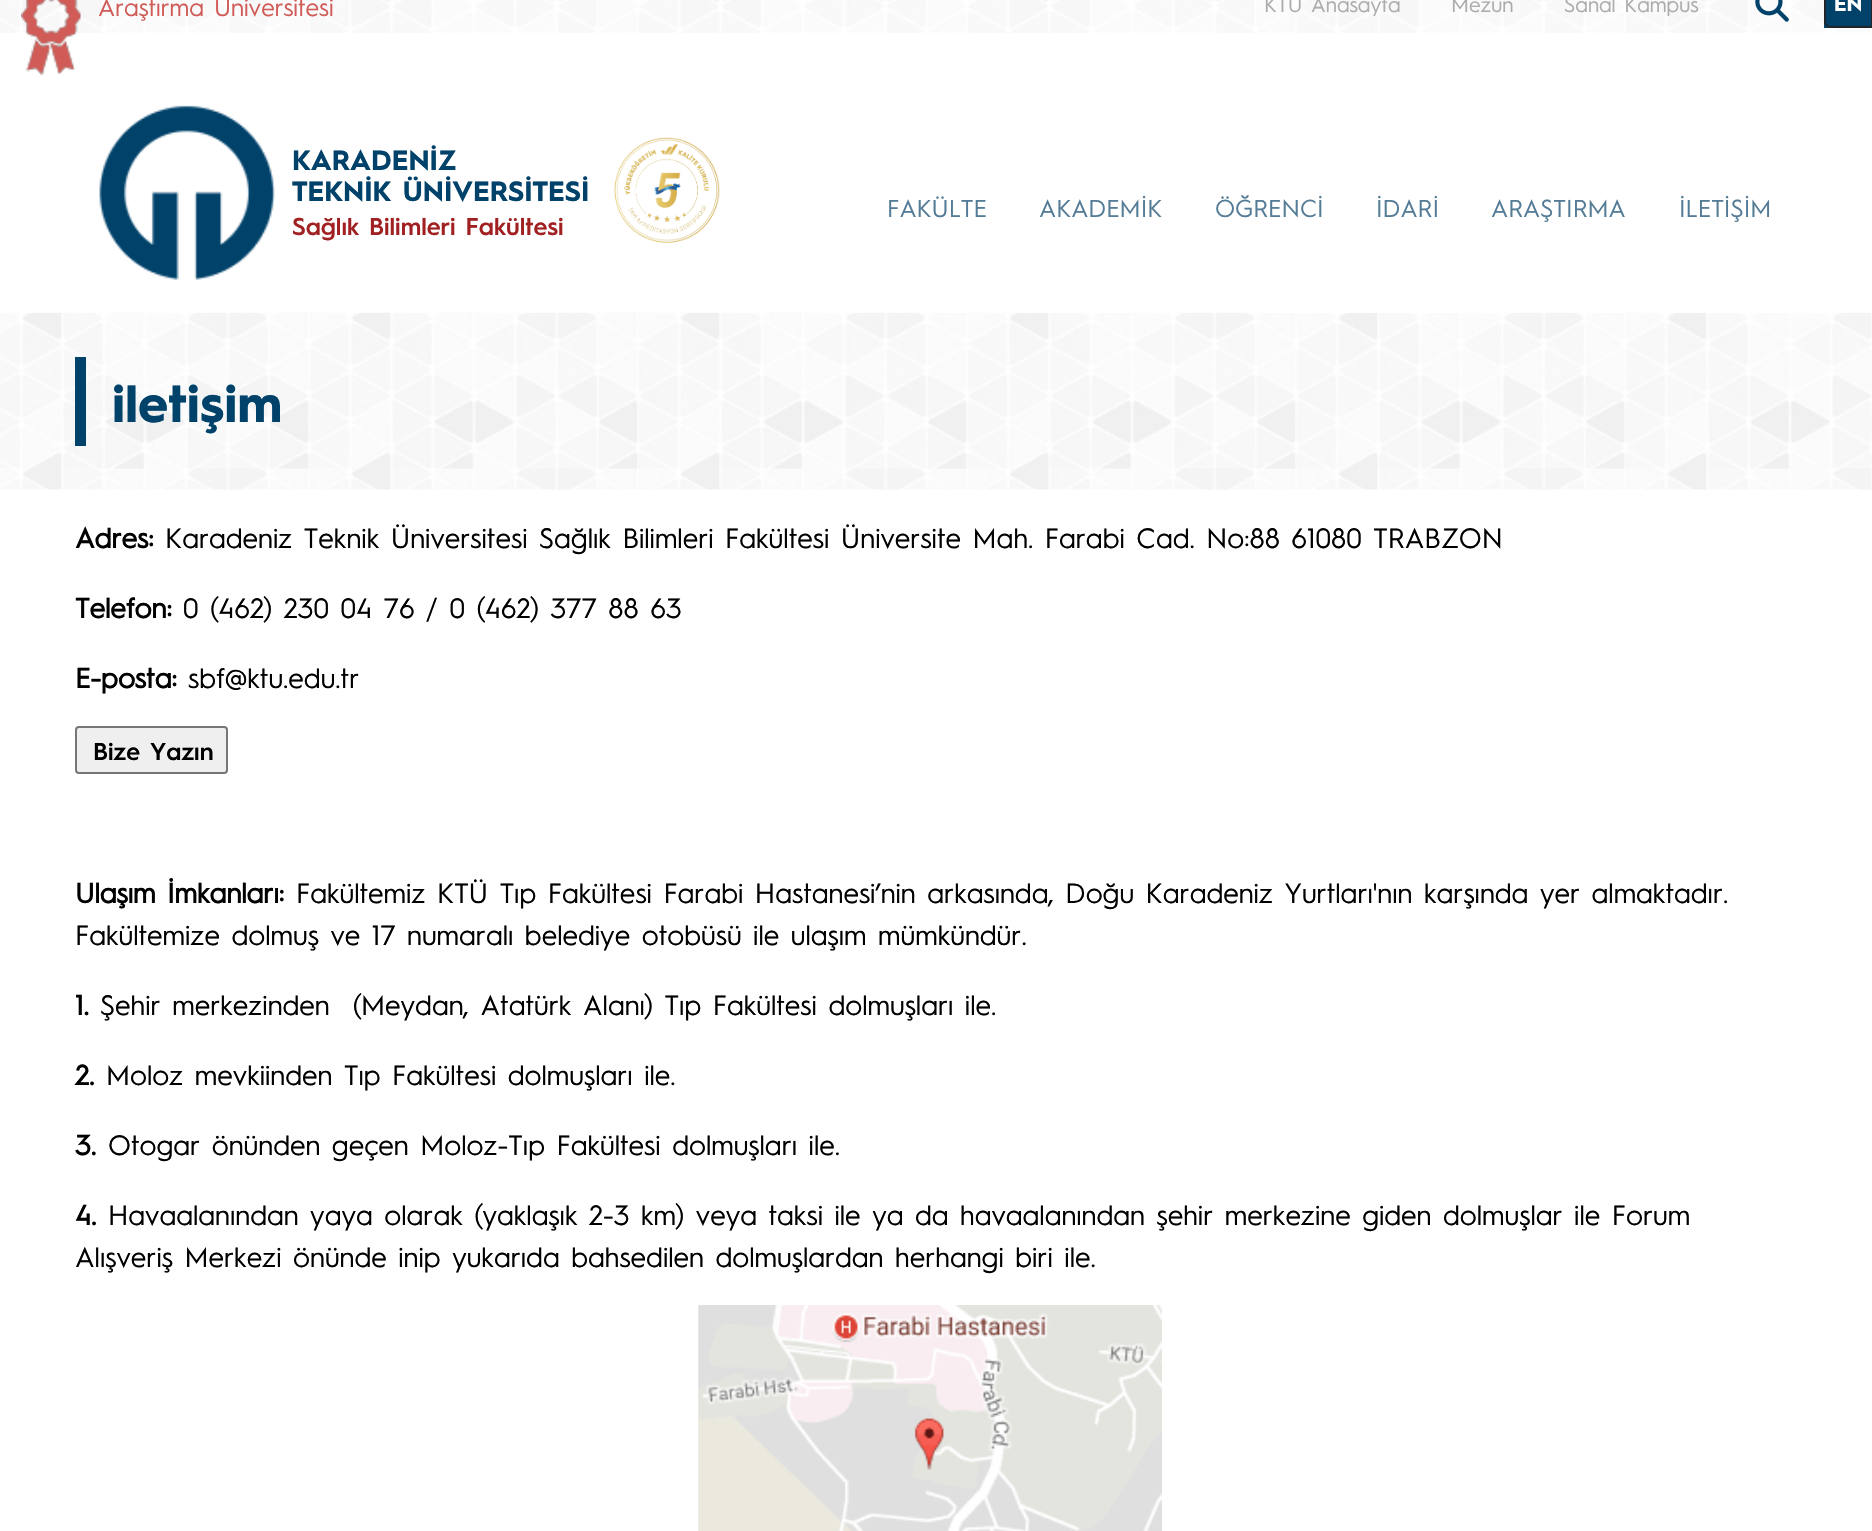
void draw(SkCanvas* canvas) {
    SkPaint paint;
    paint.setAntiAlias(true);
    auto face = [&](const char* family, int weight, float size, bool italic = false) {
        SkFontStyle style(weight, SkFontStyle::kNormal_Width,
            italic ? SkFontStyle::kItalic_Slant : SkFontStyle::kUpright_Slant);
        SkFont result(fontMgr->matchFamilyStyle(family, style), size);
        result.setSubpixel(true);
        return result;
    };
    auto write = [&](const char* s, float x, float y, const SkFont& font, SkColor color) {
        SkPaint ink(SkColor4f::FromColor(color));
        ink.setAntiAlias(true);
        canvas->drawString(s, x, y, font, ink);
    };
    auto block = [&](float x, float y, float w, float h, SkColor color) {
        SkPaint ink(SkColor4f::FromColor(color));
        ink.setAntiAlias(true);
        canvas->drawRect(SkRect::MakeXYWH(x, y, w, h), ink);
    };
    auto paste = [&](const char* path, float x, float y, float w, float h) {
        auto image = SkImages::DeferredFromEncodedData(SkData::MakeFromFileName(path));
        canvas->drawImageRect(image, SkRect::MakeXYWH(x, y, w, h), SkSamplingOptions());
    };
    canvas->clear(SK_ColorWHITE);
    paste("pic1.png", 0, 0, 1871, 33);
    paste("pic2.png", 21, 0, 60, 75);
    auto kFont1 = face("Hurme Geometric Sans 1", 400, 24.5f);
    write("Araştırma Üniversitesi", 98, 16, kFont1, SkColorSetRGB(208, 91, 87));
    auto kFont2 = face("Hurme Geometric Sans 1", 400, 21);
    write("KTÜ Anasayfa", 1264, 12, kFont2, SkColorSetRGB(172, 172, 172));
    write("Mezun", 1451, 12, kFont2, SkColorSetRGB(172, 172, 172));
    write("Sanal Kampüs", 1564, 12, kFont2, SkColorSetRGB(172, 172, 172));
    paste("pic3.png", 1755, 0, 34, 22);
    block(1824, 0, 47, 28, SkColorSetRGB(0, 66, 106));
    paint.setStyle(SkPaint::kStroke_Style);
    paint.setStrokeWidth(2);
    paint.setColor(SkColorSetRGB(33, 37, 41));
    canvas->drawPath(SkPathBuilder().moveTo(1831, -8).lineTo(1872, -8).lineTo(1872, 27).lineTo(1831, 27).cubicTo(1827.5f, 27, 1825, 24.5f, 1825, 21).lineTo(1825, -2).cubicTo(1825, -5.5f, 1827.5f, -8, 1831, -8).close().detach(), paint);
    auto kFont3 = face("Hurme Geometric Sans 1", 700, 21);
    write("EN", 1834, 11, kFont3, SK_ColorWHITE);
    paste("pic4.png", 99, 105, 176, 175);
    auto kFont4 = face("Hurme Geometric Sans 1", 700, 28);
    write("KARADENİZ", 292, 170, kFont4, SkColorSetRGB(0, 66, 106));
    write("TEKNİK ÜNİVERSİTESİ", 292, 201, kFont4, SkColorSetRGB(0, 66, 106));
    auto kFont5 = face("Hurme Geometric Sans 1", 600, 24.5f);
    write("Sağlık Bilimleri Fakültesi", 292, 235, kFont5, SkColorSetRGB(161, 33, 35));
    paste("pic5.png", 614, 137, 106, 106);
    paste("pic6.png", 0, 312, 1872, 178);
    block(938, 312, 28, 1, SK_ColorWHITE);
    write("FAKÜLTE", 887, 217, kFont1, SkColorSetRGB(85, 124, 150));
    block(1019, 312, 111, 1, SK_ColorWHITE);
    write("AKADEMİK", 1039, 217, kFont1, SkColorSetRGB(85, 124, 150));
    block(1267, 312, 192, 1, SK_ColorWHITE);
    write("ÖĞRENCİ", 1215, 217, kFont1, SkColorSetRGB(85, 124, 150));
    write("İDARİ", 1376, 217, kFont1, SkColorSetRGB(85, 124, 150));
    block(1596, 312, 28, 1, SK_ColorWHITE);
    write("ARAŞTIRMA", 1491, 217, kFont1, SkColorSetRGB(85, 124, 150));
    block(1677, 312, 111, 1, SK_ColorWHITE);
    write("İLETİŞİM", 1679, 217, kFont1, SkColorSetRGB(85, 124, 150));
    block(75, 357, 11, 89, SkColorSetRGB(0, 66, 106));
    auto kFont6 = face("Hurme Geometric Sans 1", 700, 52.5f);
    write("iletişim", 112, 422, kFont6, SkColorSetRGB(0, 66, 106));
    auto kFont7 = face("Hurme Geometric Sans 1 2", 700, 28);
    write("Adres:", 75, 548, kFont7, SK_ColorBLACK);
    auto kFont8 = face("Hurme Geometric Sans 1", 400, 28);
    write("Karadeniz Teknik Üniversitesi Sağlık Bilimleri Fakültesi Üniversite Mah. Farabi Cad. No:88 61080 TRABZON", 165, 548, kFont8, SK_ColorBLACK);
    write("Telefon:", 75, 618, kFont7, SK_ColorBLACK);
    write("0 (462) 230 04 76 / 0 (462) 377 88 63", 183, 618, kFont8, SK_ColorBLACK);
    write("E-posta:", 75, 688, kFont7, SK_ColorBLACK);
    write("sbf@ktu.edu.tr", 188, 688, kFont8, SK_ColorBLACK);
    paint.setStyle(SkPaint::kFill_Style);
    paint.setColor(SkColorSetRGB(239, 239, 239));
    canvas->drawRoundRect(SkRect::MakeXYWH(76, 727, 151, 46), 3, 3, paint);
    paint.setStyle(SkPaint::kStroke_Style);
    paint.setColor(SkColorSetRGB(118, 118, 118));
    canvas->drawRoundRect(SkRect::MakeXYWH(76, 727, 151, 46), 3, 3, paint);
    write("Bize Yazın", 93, 760, kFont5, SK_ColorBLACK);
    write("Ulaşım İmkanları:", 75, 903, kFont7, SK_ColorBLACK);
    write("Fakültemiz KTÜ Tıp Fakültesi Farabi Hastanesi’nin arkasında, Doğu Karadeniz Yurtları'nın karşında yer almaktadır.", 296, 903, kFont8, SK_ColorBLACK);
    write("Fakültemize dolmuş ve 17 numaralı belediye otobüsü ile ulaşım mümkündür.", 75, 945, kFont8, SK_ColorBLACK);
    write("1.", 75, 1015, kFont7, SK_ColorBLACK);
    write("Şehir merkezinden  (Meydan, Atatürk Alanı) Tıp Fakültesi dolmuşları ile.", 100, 1015, kFont8, SK_ColorBLACK);
    write("2.", 75, 1085, kFont7, SK_ColorBLACK);
    write("Moloz mevkiinden Tıp Fakültesi dolmuşları ile.", 106, 1085, kFont8, SK_ColorBLACK);
    write("3.", 75, 1155, kFont7, SK_ColorBLACK);
    write("Otogar önünden geçen Moloz-Tıp Fakültesi dolmuşları ile.", 108, 1155, kFont8, SK_ColorBLACK);
    write("4.", 75, 1225, kFont7, SK_ColorBLACK);
    write("Havaalanından yaya olarak (yaklaşık 2-3 km) veya taksi ile ya da havaalanından şehir merkezine giden dolmuşlar ile Forum", 108, 1225, kFont8, SK_ColorBLACK);
    write("Alışveriş Merkezi önünde inip yukarıda bahsedilen dolmuşlardan herhangi biri ile.", 75, 1267, kFont8, SK_ColorBLACK);
    paste("pic7.png", 698, 1305, 464, 226);
}
